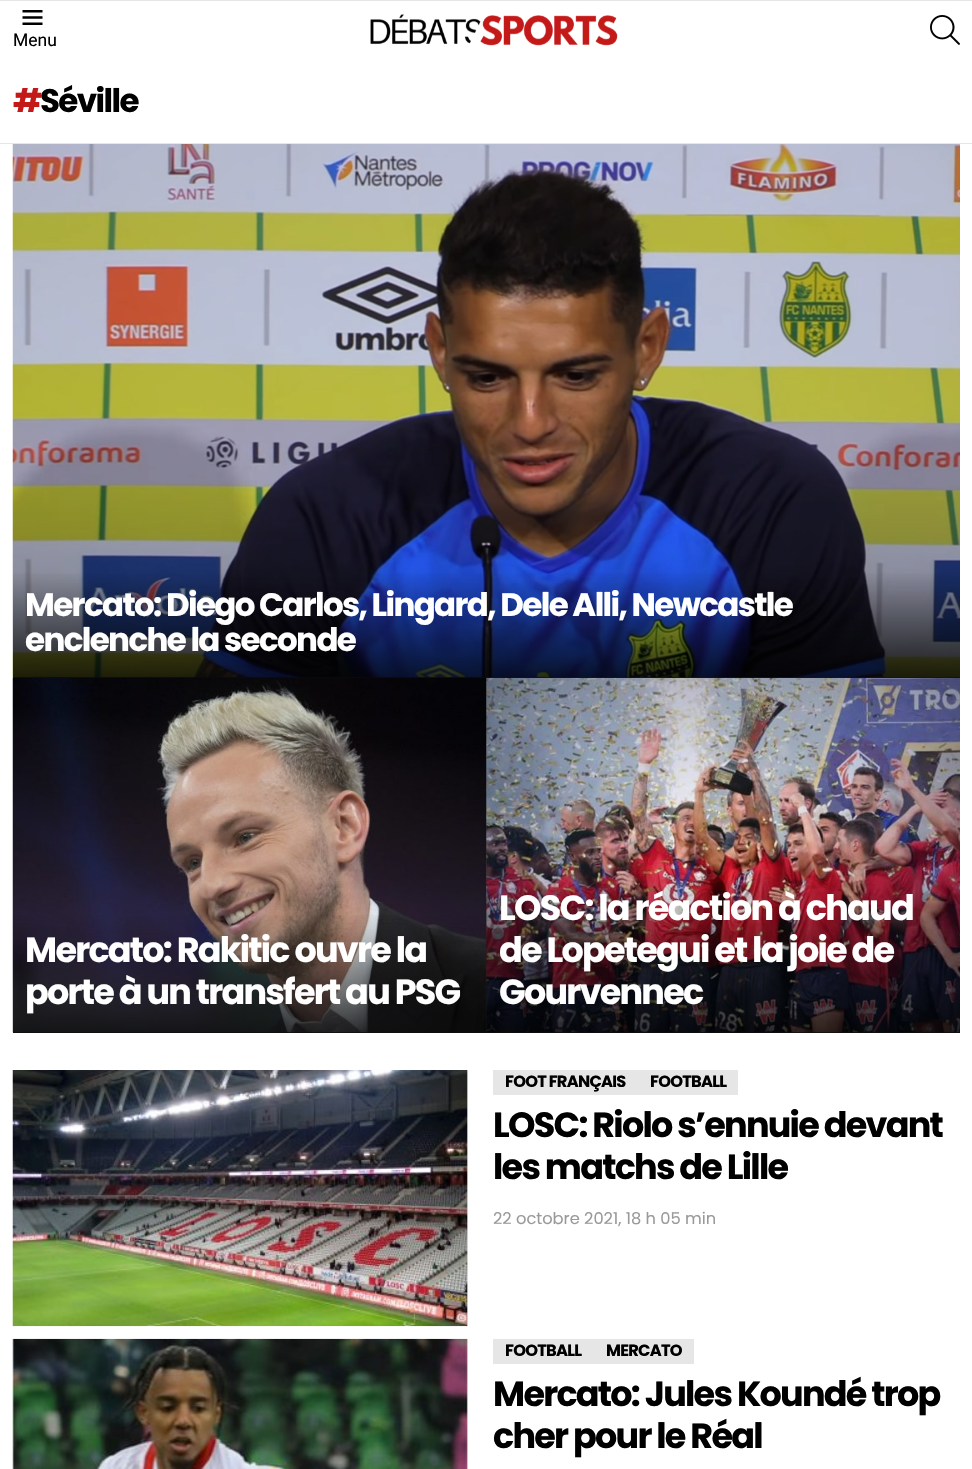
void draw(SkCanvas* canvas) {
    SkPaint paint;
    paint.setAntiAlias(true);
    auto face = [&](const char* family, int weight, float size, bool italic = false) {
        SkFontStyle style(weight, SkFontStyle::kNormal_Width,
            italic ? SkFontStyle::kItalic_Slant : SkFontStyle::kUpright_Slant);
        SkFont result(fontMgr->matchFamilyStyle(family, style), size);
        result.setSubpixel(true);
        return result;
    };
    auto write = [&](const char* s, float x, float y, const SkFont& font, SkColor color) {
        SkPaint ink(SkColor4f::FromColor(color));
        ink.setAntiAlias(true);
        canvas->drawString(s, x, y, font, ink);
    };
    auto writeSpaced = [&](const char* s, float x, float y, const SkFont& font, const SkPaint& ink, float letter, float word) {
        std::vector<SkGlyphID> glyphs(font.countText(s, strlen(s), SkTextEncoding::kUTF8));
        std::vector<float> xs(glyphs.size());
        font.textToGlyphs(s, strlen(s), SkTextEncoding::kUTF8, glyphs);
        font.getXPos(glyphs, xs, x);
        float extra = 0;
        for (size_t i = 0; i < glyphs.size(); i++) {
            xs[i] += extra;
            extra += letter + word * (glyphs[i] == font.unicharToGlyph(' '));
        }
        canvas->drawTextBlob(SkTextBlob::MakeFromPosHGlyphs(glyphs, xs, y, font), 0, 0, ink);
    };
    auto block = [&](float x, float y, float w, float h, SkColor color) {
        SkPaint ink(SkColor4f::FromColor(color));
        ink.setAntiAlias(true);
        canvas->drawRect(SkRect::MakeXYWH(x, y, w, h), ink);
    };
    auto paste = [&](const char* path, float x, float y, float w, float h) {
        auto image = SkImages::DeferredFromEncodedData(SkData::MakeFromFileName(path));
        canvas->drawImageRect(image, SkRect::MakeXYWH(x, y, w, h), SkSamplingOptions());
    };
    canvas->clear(SK_ColorWHITE);
    block(0, 0, 972, 1, SkColorSetRGB(230, 230, 230));
    paste("pic1.png", 22, 10, 21, 15);
    auto kFont1 = face("Roboto", 400, 17.5f);
    write("Menu", 13, 46, kFont1, SK_ColorBLACK);
    paste("pic2.png", 370, 14, 248, 32);
    paste("pic3.png", 930, 15, 30, 30);
    auto kFont2 = face("Poppins", 700, 32.5f);
    paint.setColor(SkColorSetRGB(196, 25, 25));
    writeSpaced("#", 13, 112, kFont2, paint, -1.62f, 0);
    paint.setColor(SK_ColorBLACK);
    writeSpaced("Séville", 40, 112, kFont2, paint, -1.62f, 0);
    block(0, 143, 972, 1, SkColorSetRGB(230, 230, 230));
    block(13, 677, 947, 1, SkColorSetRGB(51, 51, 51));
    paste("pic4.png", 12, 144, 948, 534);
    block(13, 1032, 473, 1, SkColorSetRGB(51, 51, 51));
    paste("pic5.png", 12, 677, 474, 356);
    block(486, 678, 474, 355, SkColorSetRGB(51, 51, 51));
    paste("pic6.png", 486, 677, 474, 356);
    {
        const SkColor colors[] = {SkColorSetARGB(0, 0, 0, 0), SkColorSetARGB(191, 0, 0, 0)};
        const float stops[] = {0, 1};
        const SkPoint ends[] = {{486, 570}, {486, 678}};
        paint.setShader(SkGradientShader::MakeLinear(ends, colors, stops, 2, SkTileMode::kClamp));
        paint.setAlpha(255);
    }
    canvas->drawRect(SkRect::MakeXYWH(13, 573, 947, 105), paint);
    paint.setShader(nullptr);
    paint.setColor(SK_ColorWHITE);
    writeSpaced("Mercato: Diego Carlos, Lingard, Dele Alli, Newcastle", 25, 616, kFont2, paint, -1.62f, 0);
    writeSpaced("enclenche la seconde", 25, 651, kFont2, paint, -1.62f, 0);
    {
        const SkColor colors[] = {SkColorSetARGB(0, 0, 0, 0), SkColorSetARGB(191, 0, 0, 0)};
        const float stops[] = {0, 1};
        const SkPoint ends[] = {{249, 911}, {249, 1033}};
        paint.setShader(SkGradientShader::MakeLinear(ends, colors, stops, 2, SkTileMode::kClamp));
        paint.setAlpha(255);
    }
    canvas->drawRect(SkRect::MakeXYWH(13, 915, 473, 118), paint);
    auto kFont3 = face("Poppins", 700, 35);
    paint.setShader(nullptr);
    paint.setColor(SK_ColorWHITE);
    writeSpaced("Mercato: Rakitic ouvre la", 25, 962, kFont3, paint, -1.75f, 0);
    writeSpaced("porte à un transfert au PSG", 25, 1004, kFont3, paint, -1.75f, 0);
    {
        const SkColor colors[] = {SkColorSetARGB(0, 0, 0, 0), SkColorSetARGB(191, 0, 0, 0)};
        const float stops[] = {0, 1};
        const SkPoint ends[] = {{723, 869}, {723, 1033}};
        paint.setShader(SkGradientShader::MakeLinear(ends, colors, stops, 2, SkTileMode::kClamp));
        paint.setAlpha(255);
    }
    canvas->drawRect(SkRect::MakeXYWH(486, 874, 474, 159), paint);
    paint.setShader(nullptr);
    paint.setColor(SK_ColorWHITE);
    writeSpaced("LOSC: la réaction à chaud", 499, 920, kFont3, paint, -1.75f, 0);
    writeSpaced("de Lopetegui et la joie de", 499, 962, kFont3, paint, -1.75f, 0);
    writeSpaced("Gourvennec", 499, 1004, kFont3, paint, -1.75f, 0);
    block(467, 1070, 1, 256, SkColorSetRGB(230, 230, 230));
    paste("pic7.png", 12, 1070, 456, 257);
    block(493, 1070, 245, 25, SkColorSetRGB(230, 230, 230));
    auto kFont4 = face("Poppins", 700, 16.25f);
    paint.setColor(SK_ColorBLACK);
    writeSpaced("FOOT FRANÇAIS", 505, 1087, kFont4, paint, -0.75f, 0);
    writeSpaced("FOOTBALL", 650, 1087, kFont4, paint, -0.75f, 0);
    writeSpaced("LOSC: Riolo s’ennuie devant", 493, 1137, kFont3, paint, -1.75f, 0);
    writeSpaced("les matchs de Lille", 493, 1179, kFont3, paint, -1.75f, 0);
    auto kFont5 = face("Poppins", 400, 16.25f);
    write("22 octobre 2021, 18 h 05 min", 493, 1224, kFont5, SkColorSetRGB(153, 153, 153));
    block(467, 1339, 1, 130, SkColorSetRGB(230, 230, 230));
    paste("pic8.png", 12, 1338, 456, 131);
    block(493, 1339, 201, 25, SkColorSetRGB(230, 230, 230));
    writeSpaced("FOOTBALL", 505, 1356, kFont4, paint, -0.75f, 0);
    writeSpaced("MERCATO", 606, 1356, kFont4, paint, -0.75f, 0);
    writeSpaced("Mercato: Jules Koundé trop", 493, 1406, kFont3, paint, -1.75f, 0);
    writeSpaced("cher pour le Réal", 493, 1448, kFont3, paint, -1.75f, 0);
}
